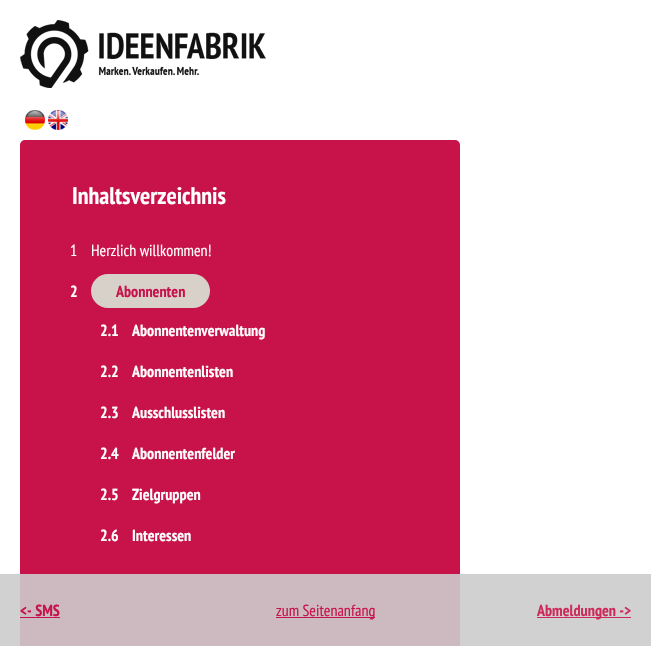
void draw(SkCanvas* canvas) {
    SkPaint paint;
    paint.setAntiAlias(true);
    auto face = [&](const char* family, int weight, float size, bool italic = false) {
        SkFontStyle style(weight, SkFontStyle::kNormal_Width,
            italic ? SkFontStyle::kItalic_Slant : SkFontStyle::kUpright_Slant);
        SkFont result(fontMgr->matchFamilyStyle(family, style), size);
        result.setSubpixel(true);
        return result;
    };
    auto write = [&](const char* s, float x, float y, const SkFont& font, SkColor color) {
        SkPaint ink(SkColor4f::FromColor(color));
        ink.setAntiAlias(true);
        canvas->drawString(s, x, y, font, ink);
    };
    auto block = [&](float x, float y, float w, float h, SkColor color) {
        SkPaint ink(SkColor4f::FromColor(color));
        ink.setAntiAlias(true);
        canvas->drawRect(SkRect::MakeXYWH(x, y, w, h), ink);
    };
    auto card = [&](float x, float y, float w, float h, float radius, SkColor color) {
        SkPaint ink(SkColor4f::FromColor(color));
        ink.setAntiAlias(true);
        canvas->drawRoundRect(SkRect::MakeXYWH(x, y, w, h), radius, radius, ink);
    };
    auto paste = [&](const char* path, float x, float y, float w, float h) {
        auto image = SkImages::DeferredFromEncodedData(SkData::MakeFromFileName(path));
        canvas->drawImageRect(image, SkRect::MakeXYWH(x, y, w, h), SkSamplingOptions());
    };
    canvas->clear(SK_ColorWHITE);
    paste("pic1.png", 20, 20, 246, 68);
    paste("pic2.png", 25, 110, 20, 20);
    paste("pic3.png", 48, 110, 20, 20);
    card(20, 140, 440, 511, 5, SkColorSetRGB(199, 18, 74));
    auto kFont1 = face("PT Sans Narrow", 700, 24);
    write("Inhaltsverzeichnis", 72, 204, kFont1, SK_ColorWHITE);
    auto kFont2 = face("PT Sans Narrow", 400, 16);
    write("1", 70, 256, kFont2, SK_ColorWHITE);
    write("Herzlich willkommen!", 91, 256, kFont2, SK_ColorWHITE);
    auto kFont3 = face("PT Sans Narrow", 700, 16);
    write("2", 70, 297, kFont3, SK_ColorWHITE);
    card(91, 274, 119, 34, 17, SkColorSetRGB(216, 209, 202));
    write("Abonnenten", 116, 297, kFont3, SkColorSetRGB(199, 18, 74));
    write("2.1", 100, 336, kFont3, SK_ColorWHITE);
    write("Abonnentenverwaltung", 132, 336, kFont3, SK_ColorWHITE);
    write("2.2", 100, 377, kFont3, SK_ColorWHITE);
    write("Abonnentenlisten", 132, 377, kFont3, SK_ColorWHITE);
    write("2.3", 100, 418, kFont3, SK_ColorWHITE);
    write("Ausschlusslisten", 132, 418, kFont3, SK_ColorWHITE);
    write("2.4", 100, 459, kFont3, SK_ColorWHITE);
    write("Abonnentenfelder", 132, 459, kFont3, SK_ColorWHITE);
    write("2.5", 100, 500, kFont3, SK_ColorWHITE);
    write("Zielgruppen", 132, 500, kFont3, SK_ColorWHITE);
    write("2.6", 100, 541, kFont3, SK_ColorWHITE);
    write("Interessen", 132, 541, kFont3, SK_ColorWHITE);
    block(0, 574, 651, 72, SkColorSetARGB(230, 204, 204, 204));
    write("<- SMS", 20, 616, kFont3, SkColorSetRGB(199, 18, 74));
    block(20, 617, 40, 1, SkColorSetRGB(199, 18, 74));
    block(276, 617, 99, 1, SkColorSetRGB(199, 18, 74));
    write("zum Seitenanfang", 276, 616, kFont2, SkColorSetRGB(199, 18, 74));
    block(537, 617, 94, 1, SkColorSetRGB(205, 42, 92));
    write("Abmeldungen ->", 537, 616, kFont3, SkColorSetRGB(205, 42, 92));
}
